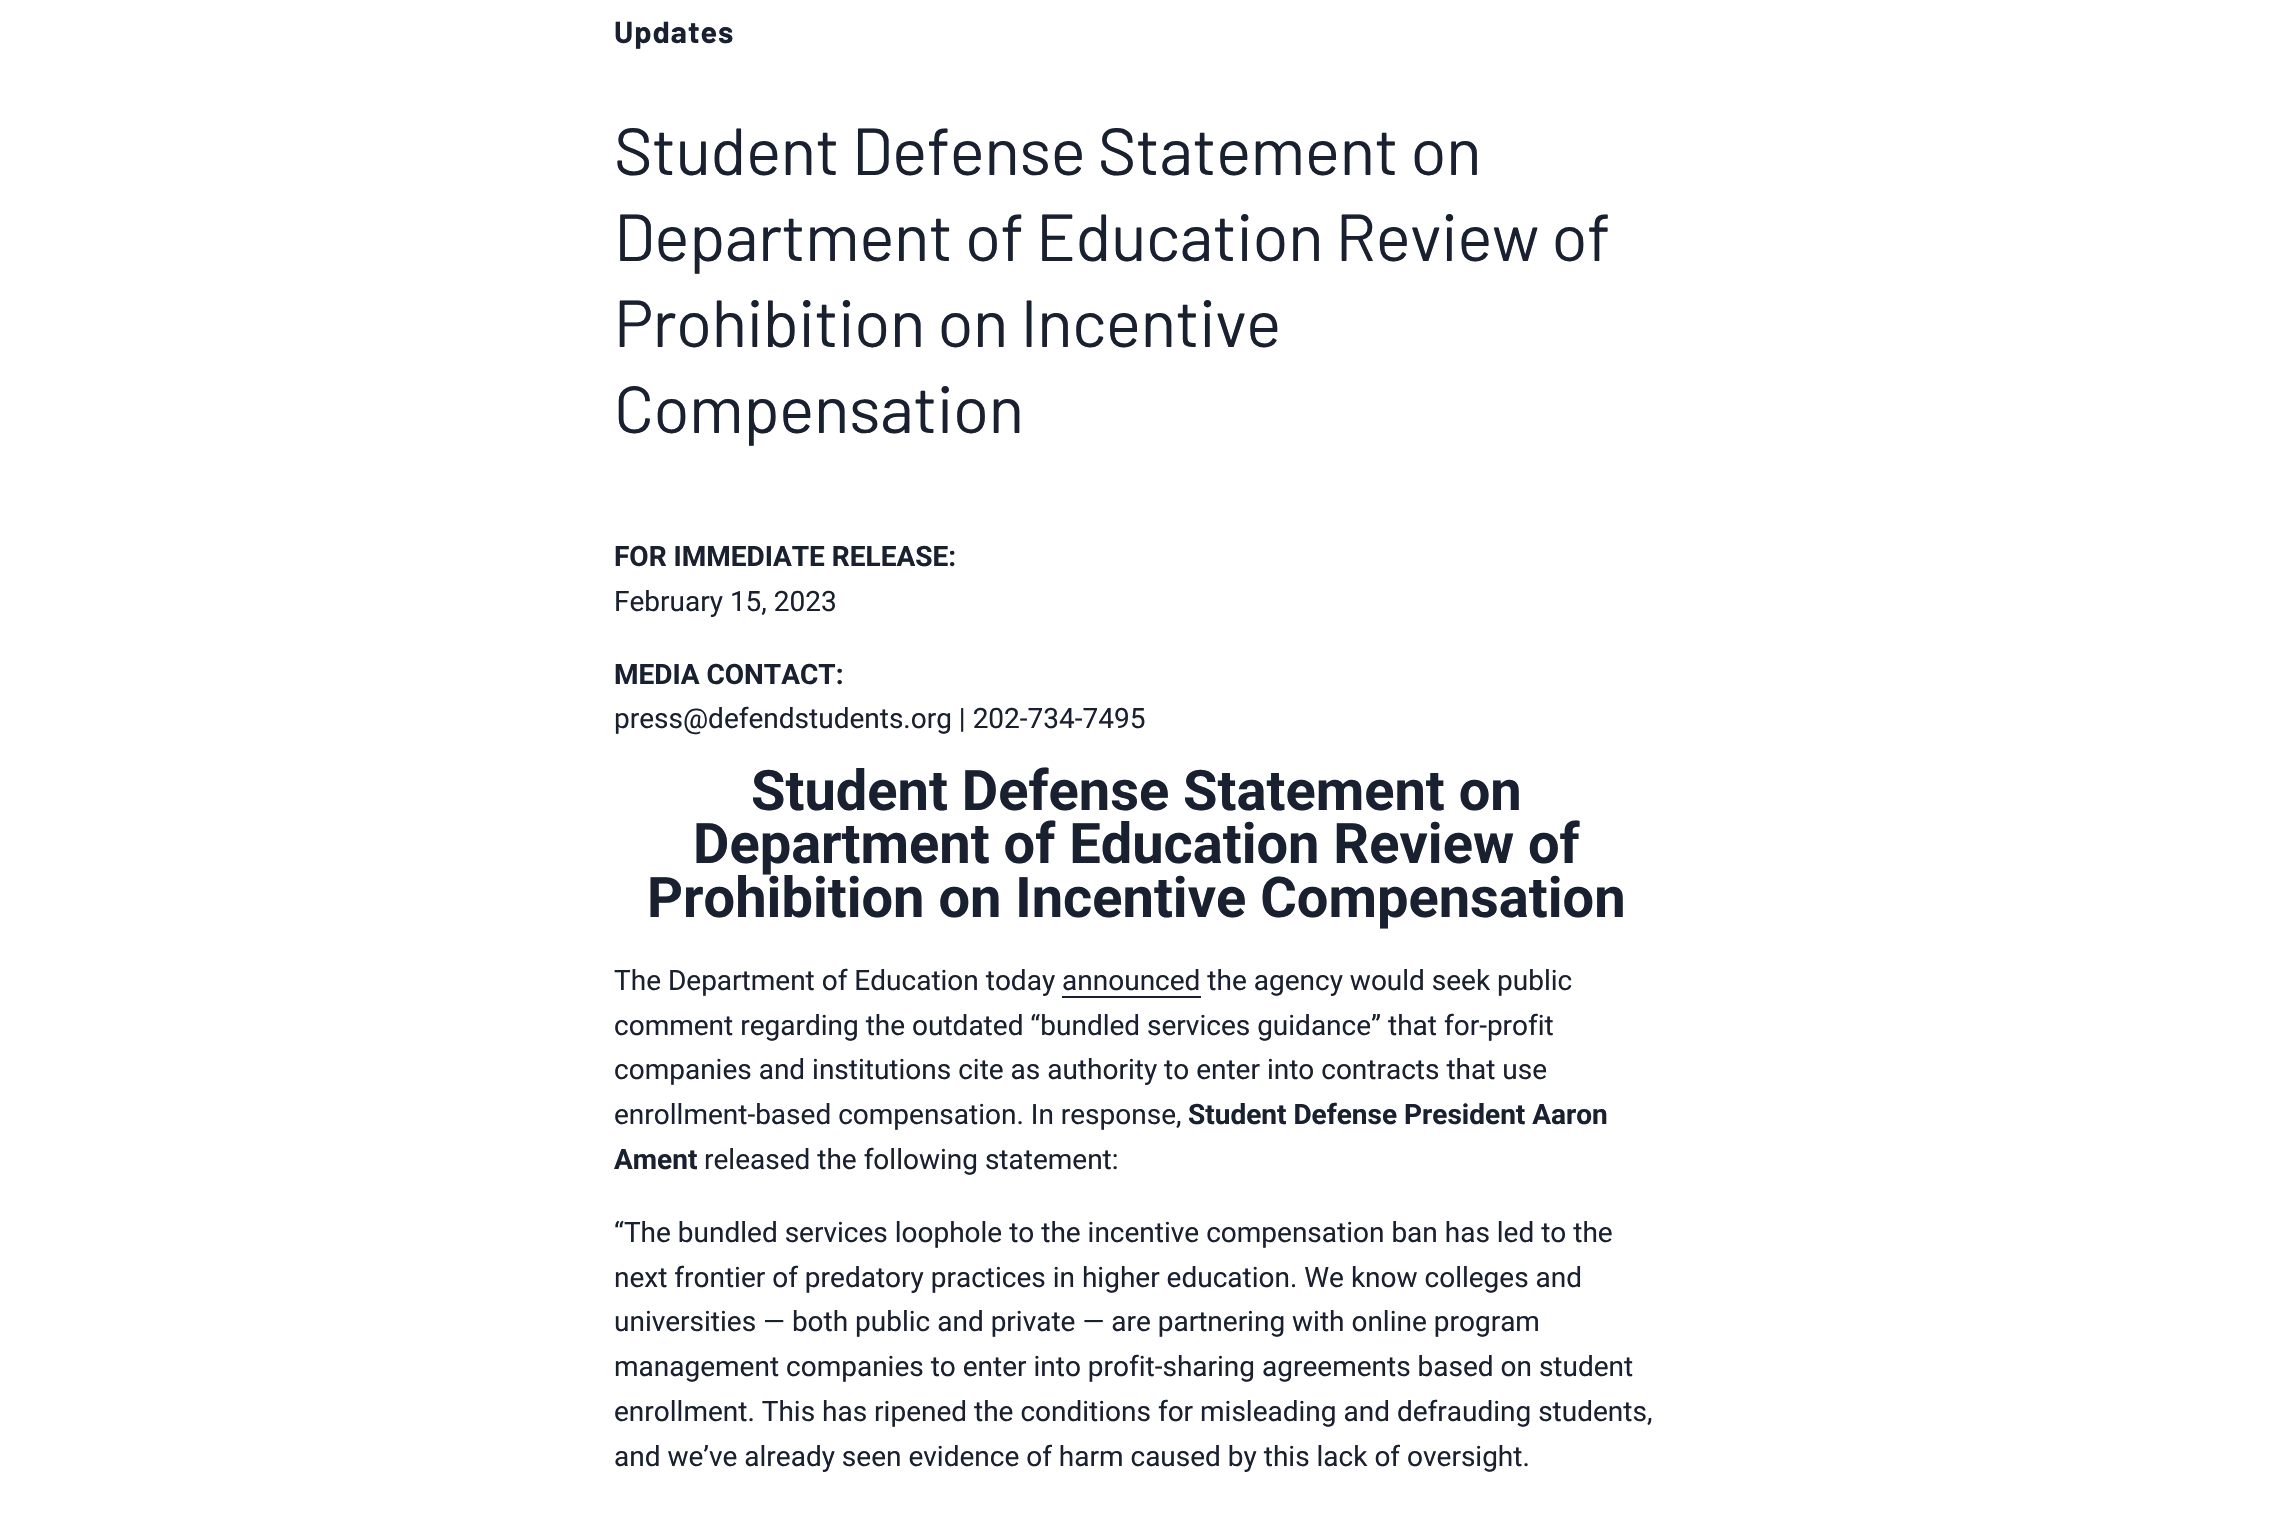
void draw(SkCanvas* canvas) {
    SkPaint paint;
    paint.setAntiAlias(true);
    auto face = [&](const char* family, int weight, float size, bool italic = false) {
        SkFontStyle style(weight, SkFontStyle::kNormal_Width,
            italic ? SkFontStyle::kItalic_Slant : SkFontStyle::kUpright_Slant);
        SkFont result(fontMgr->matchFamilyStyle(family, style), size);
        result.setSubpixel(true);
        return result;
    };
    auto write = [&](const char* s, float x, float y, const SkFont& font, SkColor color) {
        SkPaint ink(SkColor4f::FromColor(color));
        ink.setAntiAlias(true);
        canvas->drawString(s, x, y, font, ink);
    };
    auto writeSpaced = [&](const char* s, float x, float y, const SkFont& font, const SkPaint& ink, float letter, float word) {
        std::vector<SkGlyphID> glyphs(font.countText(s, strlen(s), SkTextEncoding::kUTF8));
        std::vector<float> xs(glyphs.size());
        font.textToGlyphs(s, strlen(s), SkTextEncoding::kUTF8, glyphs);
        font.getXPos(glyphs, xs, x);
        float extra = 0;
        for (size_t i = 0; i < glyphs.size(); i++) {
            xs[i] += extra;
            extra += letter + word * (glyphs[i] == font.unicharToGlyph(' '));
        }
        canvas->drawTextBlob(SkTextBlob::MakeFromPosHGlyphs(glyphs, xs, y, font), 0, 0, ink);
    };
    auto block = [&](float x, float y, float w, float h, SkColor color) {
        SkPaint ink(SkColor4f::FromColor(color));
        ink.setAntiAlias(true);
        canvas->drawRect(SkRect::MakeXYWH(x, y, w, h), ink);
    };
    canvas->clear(SK_ColorWHITE);
    auto kFont1 = face("Barlow", 700, 30.5f);
    paint.setColor(SkColorSetRGB(25, 32, 47));
    writeSpaced("Updates", 614, 43, kFont1, paint, 1, 0);
    auto kFont2 = face("Barlow", 400, 66.25f);
    writeSpaced("Student Defense Statement on", 614, 175, kFont2, paint, -0.65f, 0);
    writeSpaced("Department of Education Review of", 614, 261, kFont2, paint, -0.65f, 0);
    writeSpaced("Prohibition on Incentive", 614, 347, kFont2, paint, -0.65f, 0);
    writeSpaced("Compensation", 614, 433, kFont2, paint, -0.65f, 0);
    auto kFont3 = face("Roboto", 700, 28);
    write("FOR IMMEDIATE RELEASE:", 614, 566, kFont3, SkColorSetRGB(25, 32, 47));
    auto kFont4 = face("Roboto", 400, 28);
    write("February 15, 2023", 614, 611, kFont4, SkColorSetRGB(25, 32, 47));
    write("MEDIA CONTACT:", 614, 684, kFont3, SkColorSetRGB(25, 32, 47));
    write("press@defendstudents.org | 202-734-7495", 614, 728, kFont4, SkColorSetRGB(25, 32, 47));
    auto kFont5 = face("Roboto", 700, 56);
    write("Student Defense Statement on", 751, 810, kFont5, SkColorSetRGB(25, 32, 47));
    write("Department of Education Review of", 693, 863, kFont5, SkColorSetRGB(25, 32, 47));
    write("Prohibition on Incentive Compensation", 647, 917, kFont5, SkColorSetRGB(25, 32, 47));
    write("The Department of Education today announced the agency would seek public", 614, 990, kFont4, SkColorSetRGB(25, 32, 47));
    block(1062, 996, 139, 2, SkColorSetRGB(25, 32, 47));
    write("comment regarding the outdated “bundled services guidance” that for-profit", 614, 1035, kFont4, SkColorSetRGB(25, 32, 47));
    write("companies and institutions cite as authority to enter into contracts that use", 614, 1079, kFont4, SkColorSetRGB(25, 32, 47));
    write("enrollment-based compensation. In response,", 614, 1124, kFont4, SkColorSetRGB(25, 32, 47));
    write("Student Defense President Aaron", 1188, 1124, kFont3, SkColorSetRGB(25, 32, 47));
    write("Ament", 614, 1169, kFont3, SkColorSetRGB(25, 32, 47));
    write("released the following statement:", 704, 1169, kFont4, SkColorSetRGB(25, 32, 47));
    write("“The bundled services loophole to the incentive compensation ban has led to the", 614, 1242, kFont4, SkColorSetRGB(25, 32, 47));
    write("next frontier of predatory practices in higher education. We know colleges and", 614, 1287, kFont4, SkColorSetRGB(25, 32, 47));
    write("universities — both public and private — are partnering with online program", 614, 1331, kFont4, SkColorSetRGB(25, 32, 47));
    write("management companies to enter into profit-sharing agreements based on student", 614, 1376, kFont4, SkColorSetRGB(25, 32, 47));
    write("enrollment. This has ripened the conditions for misleading and defrauding students,", 614, 1421, kFont4, SkColorSetRGB(25, 32, 47));
    write("and we’ve already seen evidence of harm caused by this lack of oversight.", 614, 1466, kFont4, SkColorSetRGB(25, 32, 47));
}
